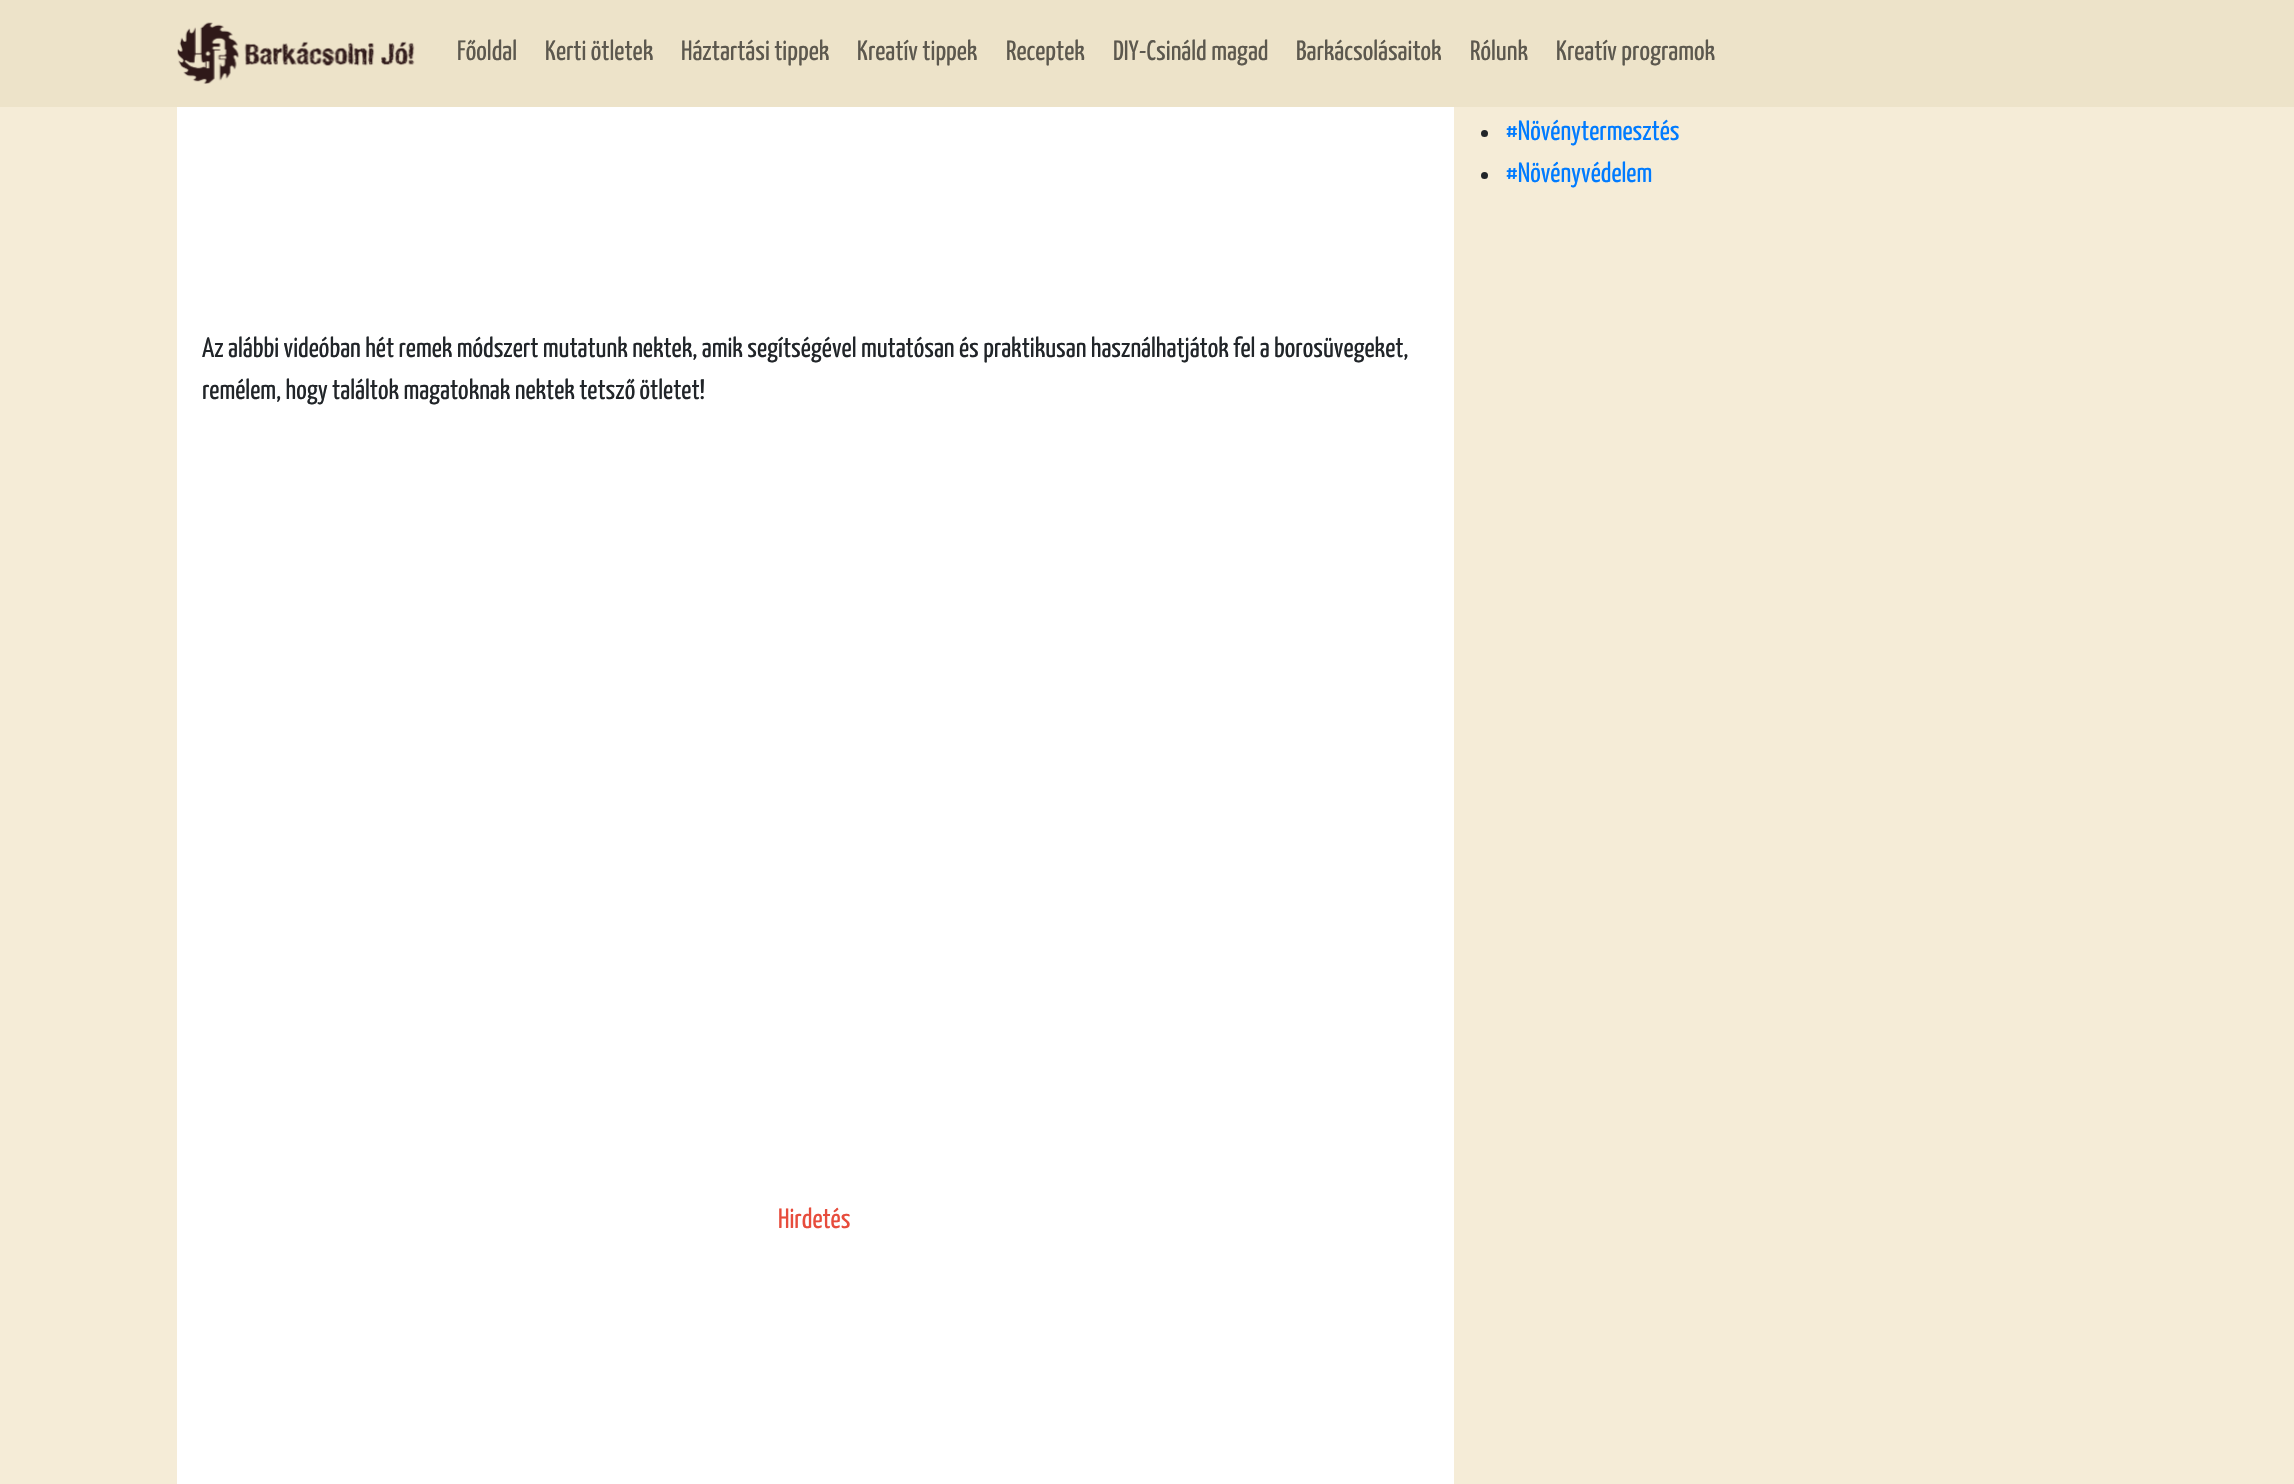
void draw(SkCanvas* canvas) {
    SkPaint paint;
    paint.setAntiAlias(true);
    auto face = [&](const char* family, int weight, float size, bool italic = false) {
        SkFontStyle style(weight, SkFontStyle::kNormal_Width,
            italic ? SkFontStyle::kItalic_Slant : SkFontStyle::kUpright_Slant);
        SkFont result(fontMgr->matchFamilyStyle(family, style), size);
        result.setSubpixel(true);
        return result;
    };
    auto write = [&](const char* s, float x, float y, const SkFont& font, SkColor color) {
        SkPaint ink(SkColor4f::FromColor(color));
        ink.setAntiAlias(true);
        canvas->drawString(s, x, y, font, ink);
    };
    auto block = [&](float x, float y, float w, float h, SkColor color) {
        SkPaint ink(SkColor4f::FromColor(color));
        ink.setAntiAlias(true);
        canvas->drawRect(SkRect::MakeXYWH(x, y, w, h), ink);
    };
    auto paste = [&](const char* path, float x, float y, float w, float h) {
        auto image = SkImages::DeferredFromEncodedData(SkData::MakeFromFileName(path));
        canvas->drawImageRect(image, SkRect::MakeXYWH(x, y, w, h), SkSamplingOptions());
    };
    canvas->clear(SkColorSetRGB(245, 236, 215));
    block(0, 0, 2294, 107, SkColorSetRGB(237, 227, 201));
    paste("pic1.png", 177, 22, 238, 62);
    auto kFont1 = face("Yanone Kaffeesatz", 200, 28);
    write("Főoldal", 457, 60, kFont1, SkColorSetRGB(92, 88, 78));
    write("Kerti ötletek", 545, 60, kFont1, SkColorSetRGB(92, 88, 78));
    write("Háztartási tippek", 681, 60, kFont1, SkColorSetRGB(92, 88, 78));
    write("Kreatív tippek", 857, 60, kFont1, SkColorSetRGB(92, 88, 78));
    write("Receptek", 1006, 60, kFont1, SkColorSetRGB(92, 88, 78));
    write("DIY-Csináld magad", 1113, 60, kFont1, SkColorSetRGB(92, 88, 78));
    write("Barkácsolásaitok", 1296, 60, kFont1, SkColorSetRGB(92, 88, 78));
    write("Rólunk", 1470, 60, kFont1, SkColorSetRGB(92, 88, 78));
    write("Kreatív programok", 1556, 60, kFont1, SkColorSetRGB(92, 88, 78));
    paint.setColor(SkColorSetRGB(33, 37, 41));
    canvas->drawCircle(1484.5f, 133.5f, 3.5f, paint);
    write("#Növénytermesztés", 1506, 140, kFont1, SkColorSetRGB(0, 123, 255));
    canvas->drawCircle(1484.5f, 175.5f, 3.5f, paint);
    write("#Növényvédelem", 1506, 182, kFont1, SkColorSetRGB(0, 123, 255));
    block(177, 107, 1277, 1377, SK_ColorWHITE);
    write("Az alábbi videóban hét remek módszert mutatunk nektek, amik segítségével mutatósan és praktikusan használhatjátok fel a borosüvegeket,", 202, 357, kFont1, SkColorSetRGB(33, 37, 41));
    write("remélem, hogy találtok magatoknak nektek tetsző ötletet!", 202, 399, kFont1, SkColorSetRGB(33, 37, 41));
    write("Hirdetés", 778, 1228, kFont1, SkColorSetRGB(231, 76, 60));
}
